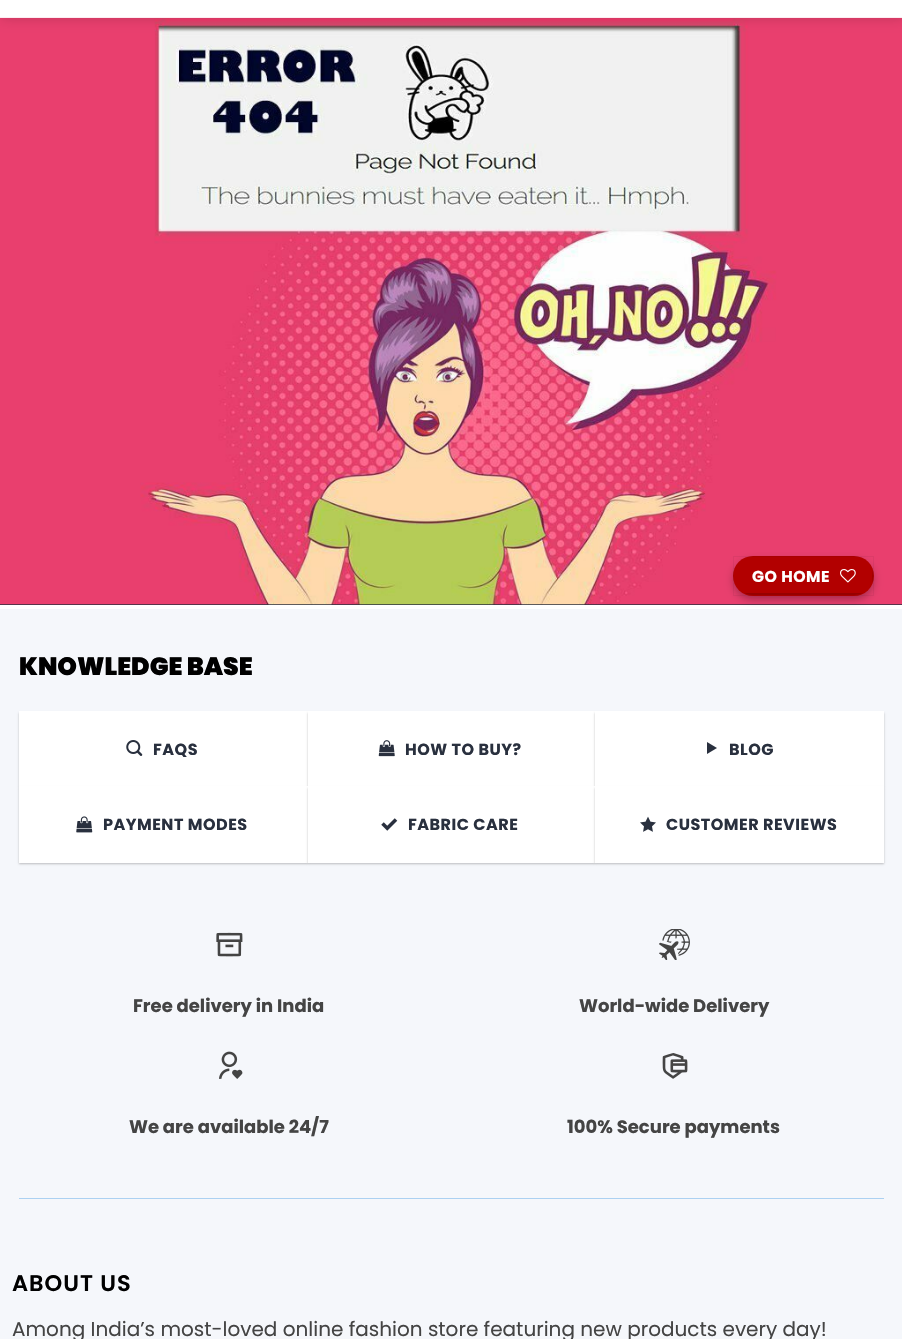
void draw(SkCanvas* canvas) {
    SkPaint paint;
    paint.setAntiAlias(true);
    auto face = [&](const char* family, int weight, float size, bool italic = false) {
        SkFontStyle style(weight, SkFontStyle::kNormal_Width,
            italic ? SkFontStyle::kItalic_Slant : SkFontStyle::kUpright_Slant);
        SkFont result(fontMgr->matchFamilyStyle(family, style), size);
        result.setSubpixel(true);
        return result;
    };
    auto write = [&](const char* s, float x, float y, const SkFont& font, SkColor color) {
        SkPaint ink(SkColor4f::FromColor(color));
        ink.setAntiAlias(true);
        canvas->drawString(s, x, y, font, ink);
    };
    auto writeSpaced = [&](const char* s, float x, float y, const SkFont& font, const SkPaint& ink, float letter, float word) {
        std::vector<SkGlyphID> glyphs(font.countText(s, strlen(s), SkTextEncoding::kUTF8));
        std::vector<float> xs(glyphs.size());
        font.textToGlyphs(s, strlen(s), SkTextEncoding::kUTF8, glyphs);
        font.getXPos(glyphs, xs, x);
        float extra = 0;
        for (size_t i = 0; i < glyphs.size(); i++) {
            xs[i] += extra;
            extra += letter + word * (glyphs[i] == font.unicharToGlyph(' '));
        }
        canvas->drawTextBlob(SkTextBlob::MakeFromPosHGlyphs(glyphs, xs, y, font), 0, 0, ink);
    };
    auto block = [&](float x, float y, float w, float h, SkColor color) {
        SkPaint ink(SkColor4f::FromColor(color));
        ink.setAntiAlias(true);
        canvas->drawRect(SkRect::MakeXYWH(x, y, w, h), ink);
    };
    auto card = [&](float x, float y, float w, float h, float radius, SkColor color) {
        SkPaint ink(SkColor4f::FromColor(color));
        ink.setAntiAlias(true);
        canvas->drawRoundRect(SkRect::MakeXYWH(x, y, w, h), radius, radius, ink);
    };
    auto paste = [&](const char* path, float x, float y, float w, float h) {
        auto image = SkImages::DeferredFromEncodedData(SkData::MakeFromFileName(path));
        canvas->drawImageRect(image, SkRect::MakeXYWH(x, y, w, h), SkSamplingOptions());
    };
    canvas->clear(SK_ColorWHITE);
    block(0, 604, 902, 1, SkColorSetRGB(41, 48, 62));
    paste("pic1.png", 0, 17, 902, 588);
    canvas->save();
    canvas->clipPath(SkPathBuilder(SkPathFillType::kEvenOdd).moveTo(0, 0).lineTo(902, 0).lineTo(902, 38).lineTo(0, 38).close().moveTo(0, -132).lineTo(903, -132).lineTo(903, 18).lineTo(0, 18).close().detach(), true);
    paint.setColor(SkColorSetARGB(38, 0, 0, 0));
    paint.setMaskFilter(SkMaskFilter::MakeBlur(kNormal_SkBlurStyle, 6));
    canvas->drawRect(SkRect::MakeXYWH(1, -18, 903, 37), paint);
    paint.setMaskFilter(nullptr);
    canvas->restore();
    block(0, 17, 902, 1, SkColorSetARGB(230, 255, 255, 255));
    block(0, 609, 902, 730, SkColorSetRGB(245, 247, 251));
    paint.setColor(SkColorSetARGB(59, 0, 0, 0));
    paint.setMaskFilter(SkMaskFilter::MakeBlur(kNormal_SkBlurStyle, 4));
    canvas->drawRoundRect(SkRect::MakeXYWH(733, 560, 141, 40), 20, 20, paint);
    paint.setMaskFilter(nullptr);
    paint.setColor(SkColorSetARGB(41, 0, 0, 0));
    paint.setMaskFilter(SkMaskFilter::MakeBlur(kNormal_SkBlurStyle, 4));
    canvas->drawRoundRect(SkRect::MakeXYWH(738, 565, 131, 30), 15, 15, paint);
    paint.setMaskFilter(nullptr);
    card(733, 556, 141, 40, 20, SkColorSetRGB(178, 0, 0));
    paint.setStyle(SkPaint::kStroke_Style);
    paint.setStrokeWidth(1);
    paint.setColor(SkColorSetARGB(13, 0, 0, 0));
    canvas->drawRect(SkRect::MakeXYWH(733.5f, 556.5f, 140, 39), paint);
    paste("pic2.png", 840, 569, 16, 14);
    auto kFont1 = face("Poppins", 700, 15.75f);
    paint.setStyle(SkPaint::kFill_Style);
    paint.setColor(SK_ColorWHITE);
    writeSpaced("GO HOME", 752, 582, kFont1, paint, 0.5f, 0);
    paint.setColor(SkColorSetARGB(38, 0, 0, 0));
    canvas->drawPath(SkPathBuilder(SkPathFillType::kEvenOdd).moveTo(872, 570).lineTo(872, 583).cubicTo(873, 579, 873, 574, 872, 570).close().moveTo(863, 593).lineTo(744, 593).cubicTo(747, 594, 749, 595, 752, 595).lineTo(854, 595).cubicTo(858, 595, 860, 594, 863, 593).close().detach(), paint);
    auto kFont2 = face("Poppins", 900, 25);
    write("KNOWLEDGE BASE", 19, 675, kFont2, SK_ColorBLACK);
    paint.setColor(SkColorSetARGB(61, 0, 0, 0));
    paint.setMaskFilter(SkMaskFilter::MakeBlur(kNormal_SkBlurStyle, 1));
    canvas->drawRect(SkRect::MakeXYWH(19, 713, 289, 75), paint);
    paint.setMaskFilter(nullptr);
    block(19, 711, 289, 75, SK_ColorWHITE);
    paste("pic3.png", 126, 740, 17, 16);
    auto kFont3 = face("Poppins", 700, 16);
    paint.setColor(SkColorSetRGB(41, 48, 62));
    writeSpaced("FAQS", 153, 755, kFont3, paint, 0.5f, 0);
    paint.setColor(SkColorSetARGB(61, 0, 0, 0));
    paint.setMaskFilter(SkMaskFilter::MakeBlur(kNormal_SkBlurStyle, 1));
    canvas->drawRect(SkRect::MakeXYWH(308, 713, 287, 75), paint);
    paint.setMaskFilter(nullptr);
    block(308, 711, 287, 75, SK_ColorWHITE);
    paste("pic4.png", 378, 740, 17, 17);
    paint.setColor(SkColorSetRGB(41, 48, 62));
    writeSpaced("HOW TO BUY?", 405, 755, kFont3, paint, 0.5f, 0);
    paint.setColor(SkColorSetARGB(61, 0, 0, 0));
    paint.setMaskFilter(SkMaskFilter::MakeBlur(kNormal_SkBlurStyle, 1));
    canvas->drawRect(SkRect::MakeXYWH(595, 713, 289, 75), paint);
    paint.setMaskFilter(nullptr);
    block(595, 711, 289, 75, SK_ColorWHITE);
    paint.setColor(SkColorSetRGB(41, 48, 62));
    canvas->drawPath(SkPathBuilder().moveTo(707, 742).lineTo(717, 748).lineTo(707, 754).close().detach(), paint);
    writeSpaced("BLOG", 729, 755, kFont3, paint, 0.5f, 0);
    paint.setColor(SkColorSetARGB(61, 0, 0, 0));
    paint.setMaskFilter(SkMaskFilter::MakeBlur(kNormal_SkBlurStyle, 1));
    canvas->drawRect(SkRect::MakeXYWH(19, 788, 289, 76), paint);
    paint.setMaskFilter(nullptr);
    block(19, 786, 289, 77, SK_ColorWHITE);
    paste("pic5.png", 76, 816, 17, 17);
    paint.setColor(SkColorSetRGB(41, 48, 62));
    writeSpaced("PAYMENT MODES", 103, 830, kFont3, paint, 0.5f, 0);
    paint.setColor(SkColorSetARGB(61, 0, 0, 0));
    paint.setMaskFilter(SkMaskFilter::MakeBlur(kNormal_SkBlurStyle, 1));
    canvas->drawRect(SkRect::MakeXYWH(308, 788, 287, 76), paint);
    paint.setMaskFilter(nullptr);
    block(308, 786, 287, 77, SK_ColorWHITE);
    paste("pic6.png", 381, 818, 17, 13);
    paint.setColor(SkColorSetRGB(41, 48, 62));
    writeSpaced("FABRIC CARE", 408, 830, kFont3, paint, 0.5f, 0);
    paint.setColor(SkColorSetARGB(61, 0, 0, 0));
    paint.setMaskFilter(SkMaskFilter::MakeBlur(kNormal_SkBlurStyle, 1));
    canvas->drawRect(SkRect::MakeXYWH(595, 788, 289, 76), paint);
    paint.setMaskFilter(nullptr);
    block(595, 786, 289, 77, SK_ColorWHITE);
    paste("pic7.png", 640, 816, 16, 16);
    paint.setColor(SkColorSetRGB(41, 48, 62));
    writeSpaced("CUSTOMER REVIEWS", 666, 830, kFont3, paint, 0.5f, 0);
    paste("pic8.png", 216, 932, 27, 25);
    auto kFont4 = face("Poppins", 700, 18);
    write("Free delivery in India", 133, 1012, kFont4, SkColorSetRGB(68, 68, 68));
    paste("pic9.png", 659, 929, 31, 31);
    write("World-wide Delivery", 579, 1012, kFont4, SkColorSetRGB(68, 68, 68));
    paste("pic10.png", 219, 1051, 24, 28);
    write("We are available 24/7", 129, 1133, kFont4, SkColorSetRGB(68, 68, 68));
    paste("pic11.png", 662, 1053, 26, 26);
    write("100% Secure payments", 567, 1133, kFont4, SkColorSetRGB(68, 68, 68));
    block(19, 1198, 865, 1, SkColorSetRGB(172, 209, 242));
    auto kFont5 = face("Poppins", 600, 22.5f);
    paint.setColor(SK_ColorBLACK);
    writeSpaced("ABOUT US", 12, 1291, kFont5, paint, 1, 0);
    auto kFont6 = face("Poppins", 400, 20);
    write("Among India’s most-loved online fashion store featuring new products every day!", 12, 1336, kFont6, SkColorSetRGB(68, 68, 68));
}
